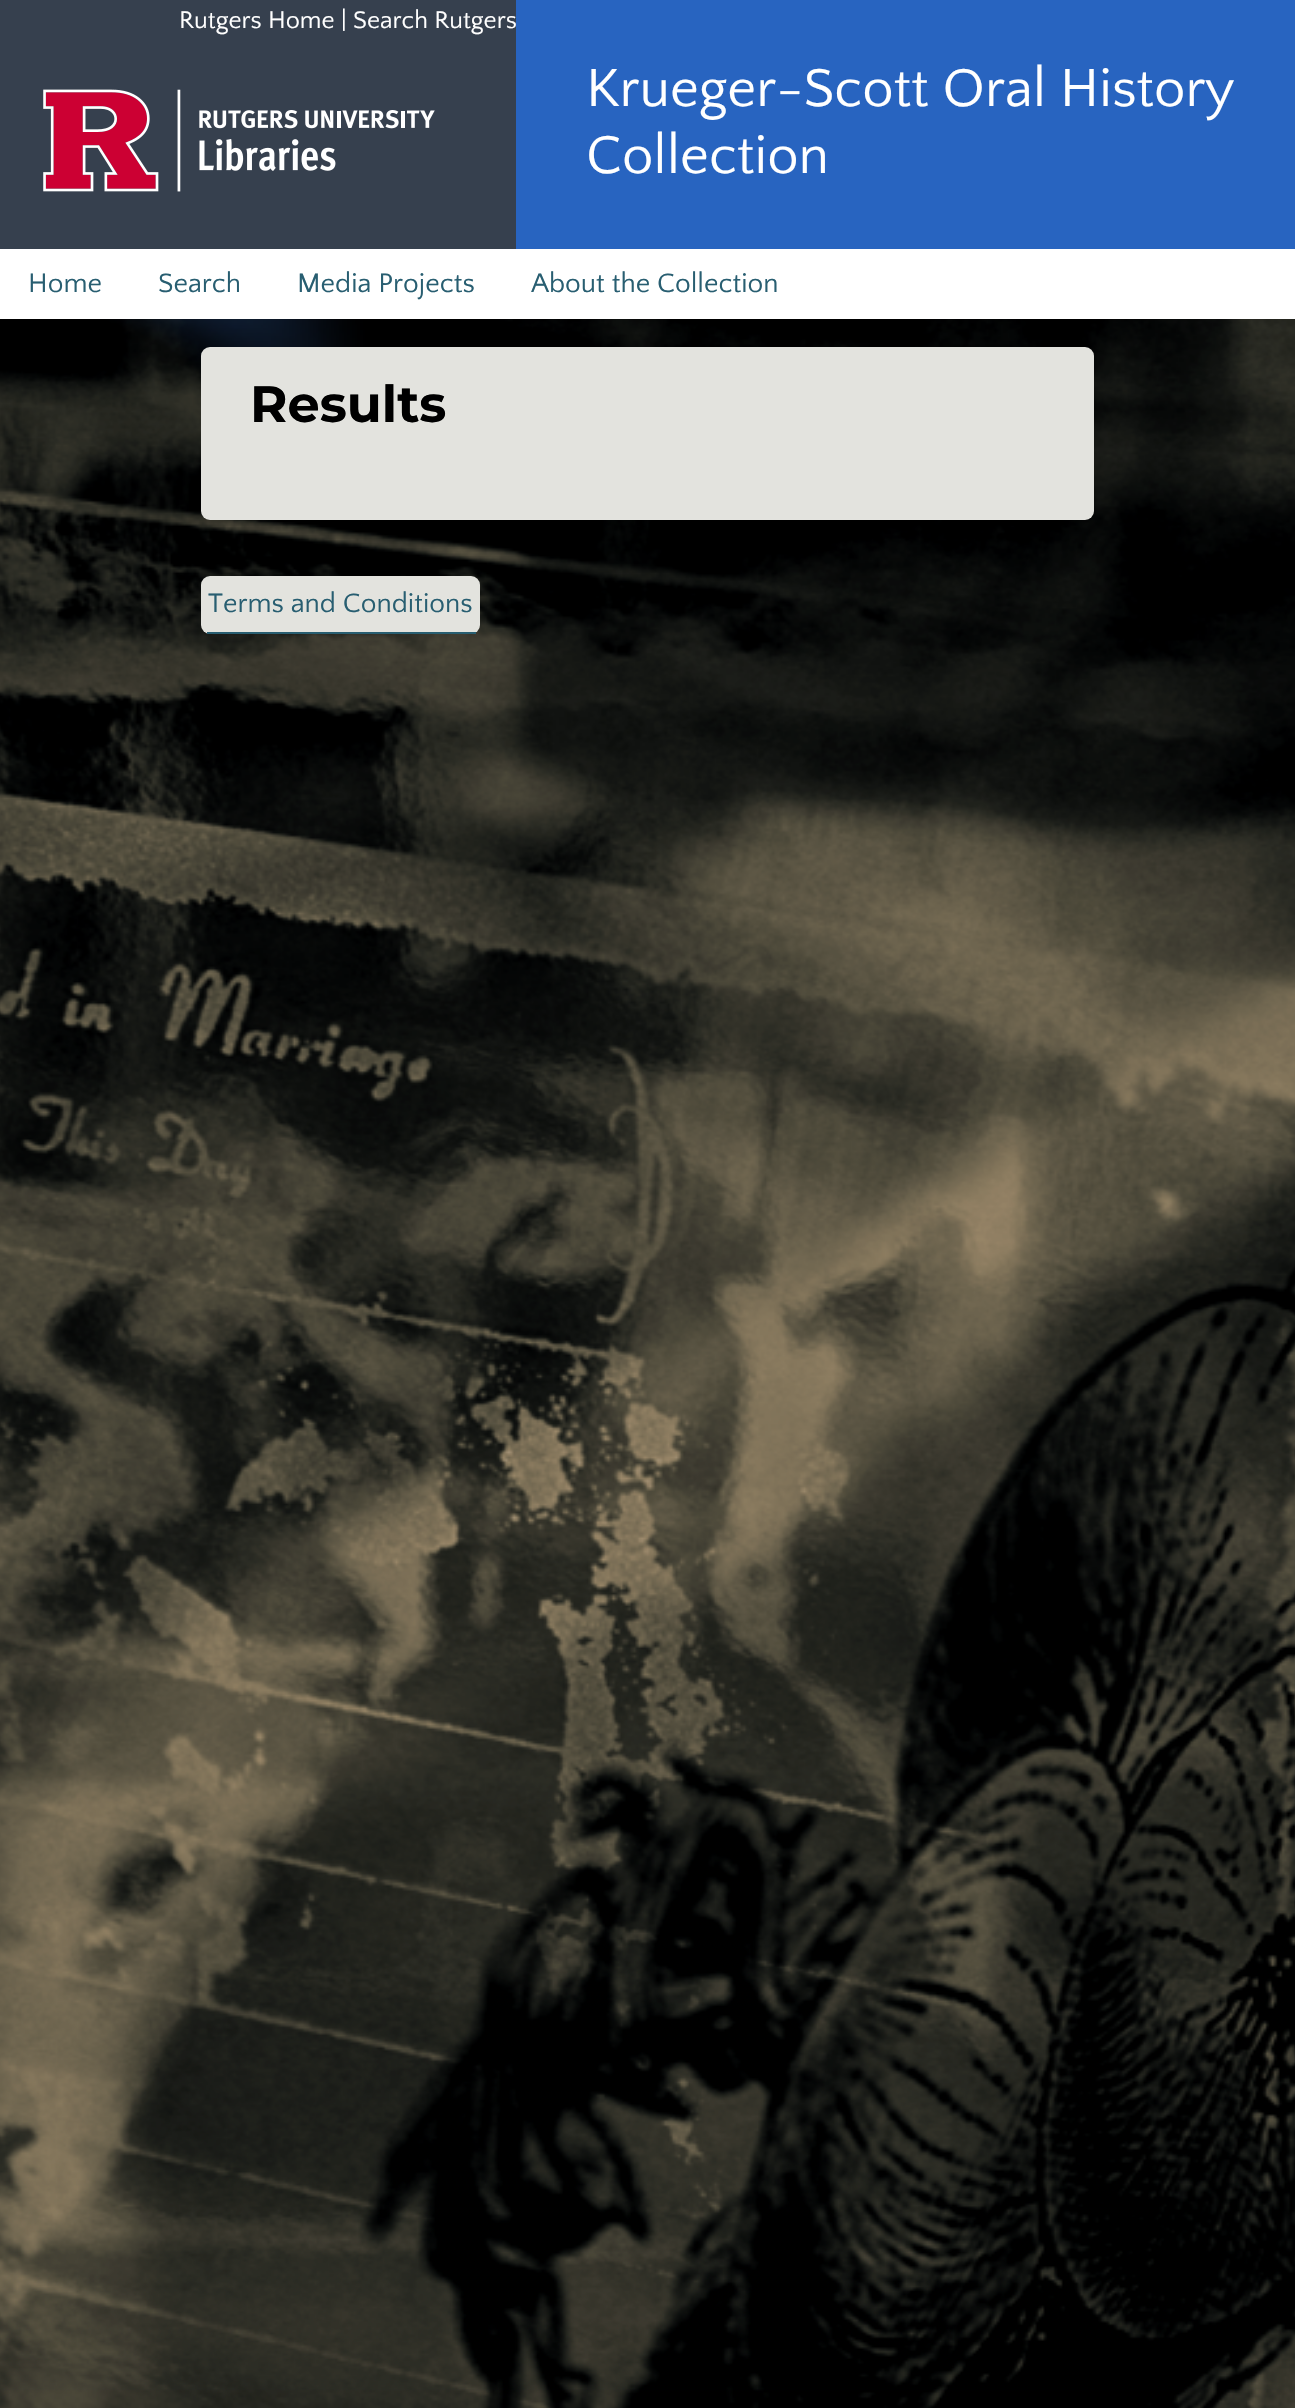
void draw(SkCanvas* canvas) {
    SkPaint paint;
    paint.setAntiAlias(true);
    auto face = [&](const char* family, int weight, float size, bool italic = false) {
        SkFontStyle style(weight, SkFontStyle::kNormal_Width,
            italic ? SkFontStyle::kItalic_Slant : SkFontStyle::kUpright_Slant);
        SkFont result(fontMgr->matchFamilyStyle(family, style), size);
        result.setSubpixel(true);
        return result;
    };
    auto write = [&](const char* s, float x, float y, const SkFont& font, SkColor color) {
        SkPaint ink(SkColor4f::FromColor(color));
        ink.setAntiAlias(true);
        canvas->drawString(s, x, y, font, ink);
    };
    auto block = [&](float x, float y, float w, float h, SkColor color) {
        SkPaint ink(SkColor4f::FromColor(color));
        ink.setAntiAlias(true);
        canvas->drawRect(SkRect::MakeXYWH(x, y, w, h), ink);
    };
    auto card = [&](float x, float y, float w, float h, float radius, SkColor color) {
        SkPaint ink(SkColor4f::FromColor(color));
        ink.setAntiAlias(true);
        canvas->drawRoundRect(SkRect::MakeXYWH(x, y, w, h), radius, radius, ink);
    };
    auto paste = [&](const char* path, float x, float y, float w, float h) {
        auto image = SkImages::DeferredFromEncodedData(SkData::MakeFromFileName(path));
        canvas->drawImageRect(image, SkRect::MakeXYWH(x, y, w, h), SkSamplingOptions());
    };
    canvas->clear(SK_ColorWHITE);
    block(516, 0, 779, 249, SkColorSetRGB(40, 100, 192));
    block(0, 0, 516, 249, SkColorSetRGB(54, 64, 78));
    auto kFont1 = face("Quattrocento Sans", 400, 25.25f);
    write("Rutgers Home | Search Rutgers", 179, 28, kFont1, SK_ColorWHITE);
    paste("pic1.png", 43, 89, 392, 103);
    auto kFont2 = face("Quattrocento Sans", 400, 56);
    write("Krueger-Scott Oral History", 586, 106, kFont2, SK_ColorWHITE);
    write("Collection", 586, 173, kFont2, SK_ColorWHITE);
    auto kFont3 = face("Quattrocento Sans", 400, 28);
    write("Home", 28, 292, kFont3, SkColorSetRGB(40, 94, 113));
    write("Search", 158, 292, kFont3, SkColorSetRGB(40, 94, 113));
    write("Media Projects", 297, 292, kFont3, SkColorSetRGB(40, 94, 113));
    write("About the Collection", 531, 292, kFont3, SkColorSetRGB(40, 94, 113));
    paste("pic2.png", 0, 319, 1295, 2089);
    card(201, 347, 893, 173, 9, SkColorSetRGB(227, 227, 222));
    auto kFont4 = face("Montserrat", 700, 51);
    write("Results", 250, 422, kFont4, SK_ColorBLACK);
    card(201, 576, 279, 58, 9, SkColorSetRGB(227, 227, 222));
    block(207, 632, 269, 2, SkColorSetRGB(40, 94, 113));
    write("Terms and Conditions", 208, 612, kFont3, SkColorSetRGB(40, 94, 113));
}
